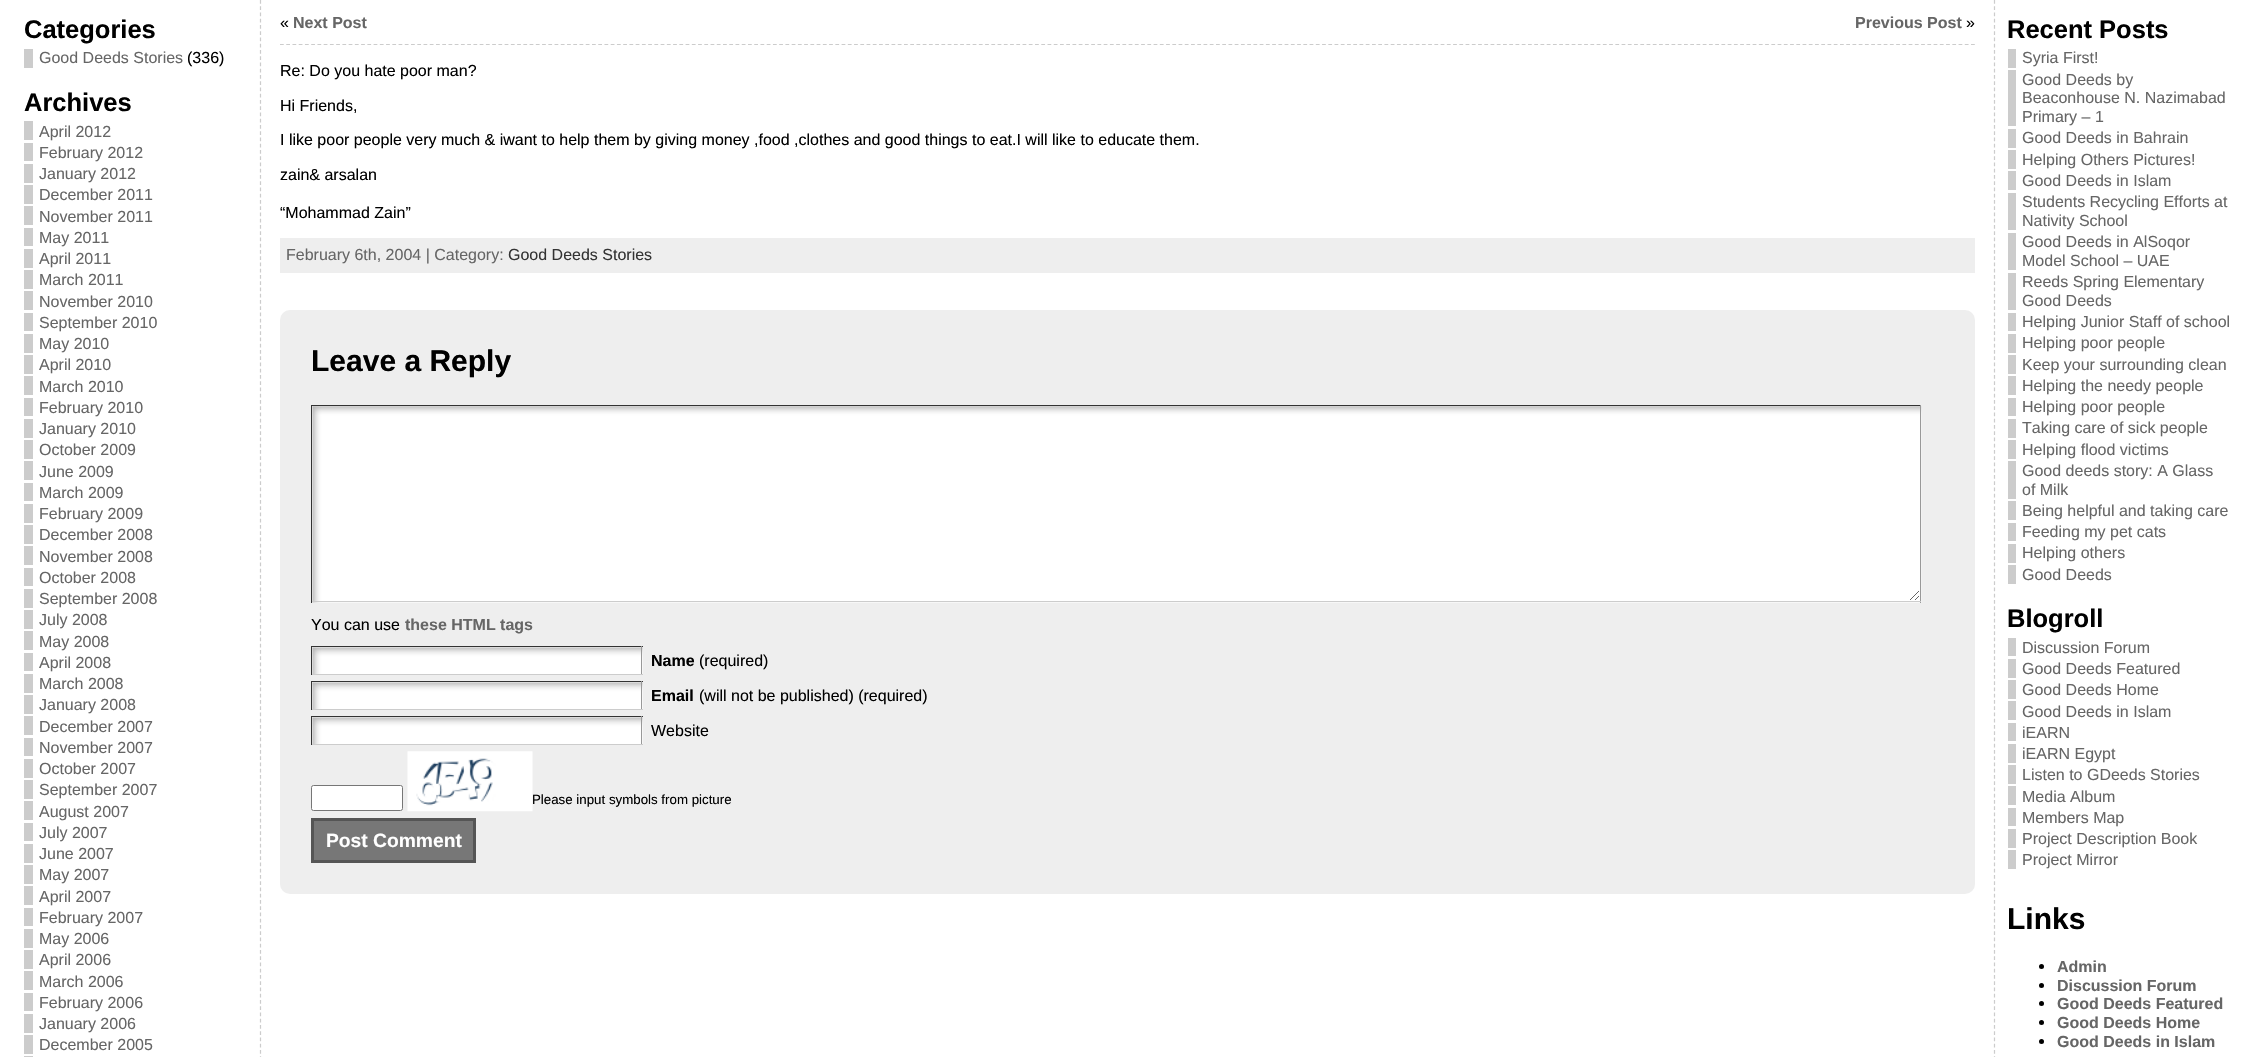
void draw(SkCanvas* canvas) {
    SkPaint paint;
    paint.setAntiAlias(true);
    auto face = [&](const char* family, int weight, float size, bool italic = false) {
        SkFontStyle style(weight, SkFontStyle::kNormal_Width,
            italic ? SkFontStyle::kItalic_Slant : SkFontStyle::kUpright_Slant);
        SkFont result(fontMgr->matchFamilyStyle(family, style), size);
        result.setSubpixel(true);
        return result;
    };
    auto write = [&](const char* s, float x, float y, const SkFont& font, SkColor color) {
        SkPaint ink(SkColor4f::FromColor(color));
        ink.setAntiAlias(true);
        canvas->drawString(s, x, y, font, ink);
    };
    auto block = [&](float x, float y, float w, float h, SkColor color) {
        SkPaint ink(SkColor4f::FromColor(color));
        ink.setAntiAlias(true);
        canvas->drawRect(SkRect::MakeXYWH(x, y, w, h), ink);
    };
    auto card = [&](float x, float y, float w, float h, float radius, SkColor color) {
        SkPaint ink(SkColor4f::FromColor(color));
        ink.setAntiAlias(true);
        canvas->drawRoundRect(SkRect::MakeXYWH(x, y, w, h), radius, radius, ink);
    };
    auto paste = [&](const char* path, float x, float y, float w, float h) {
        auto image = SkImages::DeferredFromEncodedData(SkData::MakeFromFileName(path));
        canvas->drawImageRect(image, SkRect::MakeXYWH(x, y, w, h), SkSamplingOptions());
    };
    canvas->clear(SK_ColorWHITE);
    paint.setStyle(SkPaint::kStroke_Style);
    paint.setStrokeWidth(1.2f);
    paint.setColor(SkColorSetRGB(204, 204, 204));
    paint.setPathEffect(SkDashPathEffect::Make({{3.75f, 2.5f}}, 0));
    canvas->drawPath(SkPathBuilder().moveTo(260.5f, 0).lineTo(260.5f, 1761).detach(), paint);
    paint.setPathEffect(nullptr);
    auto kFont1 = face("Liberation Sans", 700, 25.5f);
    write("Categories", 24, 38, kFont1, SK_ColorBLACK);
    auto kFont2 = face("Liberation Sans", 400, 16);
    write("Good Deeds Stories", 39, 63, kFont2, SkColorSetRGB(102, 102, 102));
    block(24, 49, 9, 19, SkColorSetRGB(204, 204, 204));
    write("(336)", 187, 63, kFont2, SK_ColorBLACK);
    write("Archives", 24, 111, kFont1, SK_ColorBLACK);
    block(24, 121, 9, 19, SkColorSetRGB(204, 204, 204));
    write("April 2012", 39, 137, kFont2, SkColorSetRGB(102, 102, 102));
    block(24, 143, 9, 18, SkColorSetRGB(204, 204, 204));
    write("February 2012", 39, 158, kFont2, SkColorSetRGB(102, 102, 102));
    block(24, 164, 9, 19, SkColorSetRGB(204, 204, 204));
    write("January 2012", 39, 179, kFont2, SkColorSetRGB(102, 102, 102));
    block(24, 185, 9, 19, SkColorSetRGB(204, 204, 204));
    write("December 2011", 39, 200, kFont2, SkColorSetRGB(102, 102, 102));
    block(24, 206, 9, 19, SkColorSetRGB(204, 204, 204));
    write("November 2011", 39, 222, kFont2, SkColorSetRGB(102, 102, 102));
    block(24, 228, 9, 18, SkColorSetRGB(204, 204, 204));
    write("May 2011", 39, 243, kFont2, SkColorSetRGB(102, 102, 102));
    block(24, 249, 9, 19, SkColorSetRGB(204, 204, 204));
    write("April 2011", 39, 264, kFont2, SkColorSetRGB(102, 102, 102));
    block(24, 270, 9, 19, SkColorSetRGB(204, 204, 204));
    write("March 2011", 39, 285, kFont2, SkColorSetRGB(102, 102, 102));
    block(24, 291, 9, 19, SkColorSetRGB(204, 204, 204));
    write("November 2010", 39, 307, kFont2, SkColorSetRGB(102, 102, 102));
    block(24, 313, 9, 18, SkColorSetRGB(204, 204, 204));
    write("September 2010", 39, 328, kFont2, SkColorSetRGB(102, 102, 102));
    block(24, 334, 9, 19, SkColorSetRGB(204, 204, 204));
    write("May 2010", 39, 349, kFont2, SkColorSetRGB(102, 102, 102));
    block(24, 355, 9, 19, SkColorSetRGB(204, 204, 204));
    write("April 2010", 39, 370, kFont2, SkColorSetRGB(102, 102, 102));
    block(24, 376, 9, 19, SkColorSetRGB(204, 204, 204));
    write("March 2010", 39, 392, kFont2, SkColorSetRGB(102, 102, 102));
    block(24, 398, 9, 18, SkColorSetRGB(204, 204, 204));
    write("February 2010", 39, 413, kFont2, SkColorSetRGB(102, 102, 102));
    block(24, 419, 9, 19, SkColorSetRGB(204, 204, 204));
    write("January 2010", 39, 434, kFont2, SkColorSetRGB(102, 102, 102));
    block(24, 440, 9, 19, SkColorSetRGB(204, 204, 204));
    write("October 2009", 39, 455, kFont2, SkColorSetRGB(102, 102, 102));
    block(24, 461, 9, 19, SkColorSetRGB(204, 204, 204));
    write("June 2009", 39, 477, kFont2, SkColorSetRGB(102, 102, 102));
    block(24, 483, 9, 18, SkColorSetRGB(204, 204, 204));
    write("March 2009", 39, 498, kFont2, SkColorSetRGB(102, 102, 102));
    block(24, 504, 9, 19, SkColorSetRGB(204, 204, 204));
    write("February 2009", 39, 519, kFont2, SkColorSetRGB(102, 102, 102));
    block(24, 525, 9, 19, SkColorSetRGB(204, 204, 204));
    write("December 2008", 39, 540, kFont2, SkColorSetRGB(102, 102, 102));
    block(24, 546, 9, 19, SkColorSetRGB(204, 204, 204));
    write("November 2008", 39, 562, kFont2, SkColorSetRGB(102, 102, 102));
    block(24, 568, 9, 18, SkColorSetRGB(204, 204, 204));
    write("October 2008", 39, 583, kFont2, SkColorSetRGB(102, 102, 102));
    block(24, 589, 9, 19, SkColorSetRGB(204, 204, 204));
    write("September 2008", 39, 604, kFont2, SkColorSetRGB(102, 102, 102));
    block(24, 610, 9, 19, SkColorSetRGB(204, 204, 204));
    write("July 2008", 39, 625, kFont2, SkColorSetRGB(102, 102, 102));
    block(24, 631, 9, 19, SkColorSetRGB(204, 204, 204));
    write("May 2008", 39, 647, kFont2, SkColorSetRGB(102, 102, 102));
    block(24, 653, 9, 18, SkColorSetRGB(204, 204, 204));
    write("April 2008", 39, 668, kFont2, SkColorSetRGB(102, 102, 102));
    block(24, 674, 9, 19, SkColorSetRGB(204, 204, 204));
    write("March 2008", 39, 689, kFont2, SkColorSetRGB(102, 102, 102));
    block(24, 695, 9, 19, SkColorSetRGB(204, 204, 204));
    write("January 2008", 39, 710, kFont2, SkColorSetRGB(102, 102, 102));
    block(24, 716, 9, 19, SkColorSetRGB(204, 204, 204));
    write("December 2007", 39, 732, kFont2, SkColorSetRGB(102, 102, 102));
    block(24, 738, 9, 18, SkColorSetRGB(204, 204, 204));
    write("November 2007", 39, 753, kFont2, SkColorSetRGB(102, 102, 102));
    block(24, 759, 9, 19, SkColorSetRGB(204, 204, 204));
    write("October 2007", 39, 774, kFont2, SkColorSetRGB(102, 102, 102));
    block(24, 780, 9, 19, SkColorSetRGB(204, 204, 204));
    write("September 2007", 39, 795, kFont2, SkColorSetRGB(102, 102, 102));
    block(24, 801, 9, 19, SkColorSetRGB(204, 204, 204));
    write("August 2007", 39, 817, kFont2, SkColorSetRGB(102, 102, 102));
    block(24, 823, 9, 18, SkColorSetRGB(204, 204, 204));
    write("July 2007", 39, 838, kFont2, SkColorSetRGB(102, 102, 102));
    block(24, 844, 9, 19, SkColorSetRGB(204, 204, 204));
    write("June 2007", 39, 859, kFont2, SkColorSetRGB(102, 102, 102));
    block(24, 865, 9, 19, SkColorSetRGB(204, 204, 204));
    write("May 2007", 39, 880, kFont2, SkColorSetRGB(102, 102, 102));
    block(24, 886, 9, 19, SkColorSetRGB(204, 204, 204));
    write("April 2007", 39, 902, kFont2, SkColorSetRGB(102, 102, 102));
    block(24, 908, 9, 18, SkColorSetRGB(204, 204, 204));
    write("February 2007", 39, 923, kFont2, SkColorSetRGB(102, 102, 102));
    block(24, 929, 9, 19, SkColorSetRGB(204, 204, 204));
    write("May 2006", 39, 944, kFont2, SkColorSetRGB(102, 102, 102));
    block(24, 950, 9, 19, SkColorSetRGB(204, 204, 204));
    write("April 2006", 39, 965, kFont2, SkColorSetRGB(102, 102, 102));
    block(24, 971, 9, 19, SkColorSetRGB(204, 204, 204));
    write("March 2006", 39, 987, kFont2, SkColorSetRGB(102, 102, 102));
    block(24, 993, 9, 18, SkColorSetRGB(204, 204, 204));
    write("February 2006", 39, 1008, kFont2, SkColorSetRGB(102, 102, 102));
    block(24, 1014, 9, 19, SkColorSetRGB(204, 204, 204));
    write("January 2006", 39, 1029, kFont2, SkColorSetRGB(102, 102, 102));
    block(24, 1035, 9, 19, SkColorSetRGB(204, 204, 204));
    write("December 2005", 39, 1050, kFont2, SkColorSetRGB(102, 102, 102));
    block(24, 1056, 9, 1, SkColorSetRGB(204, 204, 204));
    paint.setPathEffect(SkDashPathEffect::Make({{3.75f, 2.49f}}, 0));
    canvas->drawPath(SkPathBuilder().moveTo(280, 44.5f).lineTo(1975, 44.5f).detach(), paint);
    paint.setPathEffect(nullptr);
    write("«", 280, 28, kFont2, SK_ColorBLACK);
    auto kFont3 = face("Liberation Sans", 700, 16);
    write("Next Post", 293, 28, kFont3, SkColorSetRGB(102, 102, 102));
    write("Previous Post", 1855, 28, kFont3, SkColorSetRGB(102, 102, 102));
    write("»", 1966, 28, kFont2, SK_ColorBLACK);
    write("Re: Do you hate poor man?", 280, 76, kFont2, SK_ColorBLACK);
    write("Hi Friends,", 280, 111, kFont2, SK_ColorBLACK);
    write("I like poor people very much & iwant to help them by giving money ,food ,clothes and good things to eat.I will like to educate them.", 280, 145, kFont2, SK_ColorBLACK);
    write("zain& arsalan", 280, 180, kFont2, SK_ColorBLACK);
    write("“Mohammad Zain”", 280, 218, kFont2, SK_ColorBLACK);
    block(280, 238, 1695, 35, SkColorSetRGB(238, 238, 238));
    write("February 6th, 2004 | Category:", 286, 260, kFont2, SkColorSetRGB(102, 102, 102));
    write("Good Deeds Stories", 508, 260, kFont2, SkColorSetRGB(51, 51, 51));
    card(280, 310, 1695, 584, 10, SkColorSetRGB(238, 238, 238));
    auto kFont4 = face("Liberation Sans", 700, 30);
    write("Leave a Reply", 311, 371, kFont4, SK_ColorBLACK);
    paste("pic1.png", 312, 406, 1610, 197);
    block(311, 405, 1610, 1, SkColorSetRGB(51, 51, 51));
    block(1920, 405, 1, 198, SkColorSetRGB(153, 153, 153));
    block(311, 601, 1610, 1, SkColorSetRGB(204, 204, 204));
    block(311, 405, 1, 198, SkColorSetRGB(51, 51, 51));
    write("You can use", 311, 630, kFont2, SK_ColorBLACK);
    write("these HTML tags", 405, 630, kFont3, SkColorSetRGB(102, 102, 102));
    paste("pic2.png", 312, 647, 331, 27);
    block(311, 646, 332, 1, SkColorSetRGB(51, 51, 51));
    block(641, 646, 1, 29, SkColorSetRGB(153, 153, 153));
    block(311, 674, 332, 1, SkColorSetRGB(204, 204, 204));
    block(311, 646, 1, 29, SkColorSetRGB(51, 51, 51));
    write("Name", 651, 666, kFont3, SK_ColorBLACK);
    write("(required)", 699, 666, kFont2, SK_ColorBLACK);
    paste("pic2.png", 312, 682, 331, 27);
    block(311, 681, 332, 1, SkColorSetRGB(51, 51, 51));
    block(641, 681, 1, 29, SkColorSetRGB(153, 153, 153));
    block(311, 709, 332, 1, SkColorSetRGB(204, 204, 204));
    block(311, 681, 1, 29, SkColorSetRGB(51, 51, 51));
    write("Email", 651, 701, kFont3, SK_ColorBLACK);
    write("(will not be published) (required)", 699, 701, kFont2, SK_ColorBLACK);
    paste("pic2.png", 312, 717, 331, 27);
    block(311, 716, 332, 1, SkColorSetRGB(51, 51, 51));
    block(641, 716, 1, 29, SkColorSetRGB(153, 153, 153));
    block(311, 744, 332, 1, SkColorSetRGB(204, 204, 204));
    block(311, 716, 1, 29, SkColorSetRGB(51, 51, 51));
    write("Website", 651, 736, kFont2, SK_ColorBLACK);
    paint.setStyle(SkPaint::kFill_Style);
    paint.setColor(SK_ColorWHITE);
    canvas->drawRoundRect(SkRect::MakeXYWH(311.5f, 785.5f, 91, 25), 2, 2, paint);
    paint.setStyle(SkPaint::kStroke_Style);
    paint.setStrokeWidth(1);
    paint.setColor(SkColorSetRGB(118, 118, 118));
    canvas->drawRoundRect(SkRect::MakeXYWH(311.5f, 785.5f, 91, 25), 2, 2, paint);
    paste("pic3.png", 407, 751, 126, 61);
    auto kFont5 = face("Liberation Sans", 400, 13.3f);
    write("Please input symbols from picture", 532, 804, kFont5, SK_ColorBLACK);
    paint.setStyle(SkPaint::kFill_Style);
    paint.setColor(SkColorSetRGB(119, 119, 119));
    canvas->drawRect(SkRect::MakeXYWH(312.5f, 819.5f, 162, 42), paint);
    paint.setStyle(SkPaint::kStroke_Style);
    paint.setStrokeWidth(3);
    paint.setColor(SkColorSetRGB(85, 85, 85));
    canvas->drawRect(SkRect::MakeXYWH(312.5f, 819.5f, 162, 42), paint);
    auto kFont6 = face("Liberation Sans", 700, 19.25f);
    write("Post Comment", 326, 847, kFont6, SK_ColorWHITE);
    paint.setStrokeWidth(1.2f);
    paint.setColor(SkColorSetRGB(204, 204, 204));
    paint.setPathEffect(SkDashPathEffect::Make({{3.75f, 2.5f}}, 0));
    canvas->drawPath(SkPathBuilder().moveTo(1994.5f, 0).lineTo(1994.5f, 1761).detach(), paint);
    paint.setPathEffect(nullptr);
    write("Recent Posts", 2007, 38, kFont1, SK_ColorBLACK);
    block(2008, 49, 8, 19, SkColorSetRGB(204, 204, 204));
    write("Syria First!", 2022, 63, kFont2, SkColorSetRGB(102, 102, 102));
    block(2008, 70, 8, 56, SkColorSetRGB(204, 204, 204));
    write("Good Deeds by", 2022, 85, kFont2, SkColorSetRGB(102, 102, 102));
    write("Beaconhouse N. Nazimabad", 2022, 103, kFont2, SkColorSetRGB(102, 102, 102));
    write("Primary – 1", 2022, 122, kFont2, SkColorSetRGB(102, 102, 102));
    block(2008, 129, 8, 19, SkColorSetRGB(204, 204, 204));
    write("Good Deeds in Bahrain", 2022, 143, kFont2, SkColorSetRGB(102, 102, 102));
    block(2008, 150, 8, 19, SkColorSetRGB(204, 204, 204));
    write("Helping Others Pictures!", 2022, 165, kFont2, SkColorSetRGB(102, 102, 102));
    block(2008, 171, 8, 19, SkColorSetRGB(204, 204, 204));
    write("Good Deeds in Islam", 2022, 186, kFont2, SkColorSetRGB(102, 102, 102));
    block(2008, 193, 8, 37, SkColorSetRGB(204, 204, 204));
    write("Students Recycling Efforts at", 2022, 207, kFont2, SkColorSetRGB(102, 102, 102));
    write("Nativity School", 2022, 226, kFont2, SkColorSetRGB(102, 102, 102));
    block(2008, 233, 8, 37, SkColorSetRGB(204, 204, 204));
    write("Good Deeds in AlSoqor", 2022, 247, kFont2, SkColorSetRGB(102, 102, 102));
    write("Model School – UAE", 2022, 266, kFont2, SkColorSetRGB(102, 102, 102));
    block(2008, 273, 8, 37, SkColorSetRGB(204, 204, 204));
    write("Reeds Spring Elementary", 2022, 287, kFont2, SkColorSetRGB(102, 102, 102));
    write("Good Deeds", 2022, 306, kFont2, SkColorSetRGB(102, 102, 102));
    block(2008, 313, 8, 18, SkColorSetRGB(204, 204, 204));
    write("Helping Junior Staff of school", 2022, 327, kFont2, SkColorSetRGB(102, 102, 102));
    block(2008, 334, 8, 19, SkColorSetRGB(204, 204, 204));
    write("Helping poor people", 2022, 348, kFont2, SkColorSetRGB(102, 102, 102));
    block(2008, 355, 8, 19, SkColorSetRGB(204, 204, 204));
    write("Keep your surrounding clean", 2022, 370, kFont2, SkColorSetRGB(102, 102, 102));
    block(2008, 376, 8, 19, SkColorSetRGB(204, 204, 204));
    write("Helping the needy people", 2022, 391, kFont2, SkColorSetRGB(102, 102, 102));
    block(2008, 398, 8, 18, SkColorSetRGB(204, 204, 204));
    write("Helping poor people", 2022, 412, kFont2, SkColorSetRGB(102, 102, 102));
    block(2008, 419, 8, 19, SkColorSetRGB(204, 204, 204));
    write("Taking care of sick people", 2022, 433, kFont2, SkColorSetRGB(102, 102, 102));
    block(2008, 440, 8, 19, SkColorSetRGB(204, 204, 204));
    write("Helping flood victims", 2022, 455, kFont2, SkColorSetRGB(102, 102, 102));
    block(2008, 461, 8, 38, SkColorSetRGB(204, 204, 204));
    write("Good deeds story: A Glass", 2022, 476, kFont2, SkColorSetRGB(102, 102, 102));
    write("of Milk", 2022, 495, kFont2, SkColorSetRGB(102, 102, 102));
    block(2008, 501, 8, 19, SkColorSetRGB(204, 204, 204));
    write("Being helpful and taking care", 2022, 516, kFont2, SkColorSetRGB(102, 102, 102));
    block(2008, 523, 8, 18, SkColorSetRGB(204, 204, 204));
    write("Feeding my pet cats", 2022, 537, kFont2, SkColorSetRGB(102, 102, 102));
    block(2008, 544, 8, 19, SkColorSetRGB(204, 204, 204));
    write("Helping others", 2022, 558, kFont2, SkColorSetRGB(102, 102, 102));
    block(2008, 565, 8, 19, SkColorSetRGB(204, 204, 204));
    write("Good Deeds", 2022, 580, kFont2, SkColorSetRGB(102, 102, 102));
    write("Blogroll", 2007, 627, kFont1, SK_ColorBLACK);
    block(2008, 638, 8, 18, SkColorSetRGB(204, 204, 204));
    write("Discussion Forum", 2022, 653, kFont2, SkColorSetRGB(102, 102, 102));
    block(2008, 659, 8, 19, SkColorSetRGB(204, 204, 204));
    write("Good Deeds Featured", 2022, 674, kFont2, SkColorSetRGB(102, 102, 102));
    block(2008, 680, 8, 19, SkColorSetRGB(204, 204, 204));
    write("Good Deeds Home", 2022, 695, kFont2, SkColorSetRGB(102, 102, 102));
    block(2008, 701, 8, 19, SkColorSetRGB(204, 204, 204));
    write("Good Deeds in Islam", 2022, 717, kFont2, SkColorSetRGB(102, 102, 102));
    block(2008, 723, 8, 18, SkColorSetRGB(204, 204, 204));
    write("iEARN", 2022, 738, kFont2, SkColorSetRGB(102, 102, 102));
    block(2008, 744, 8, 19, SkColorSetRGB(204, 204, 204));
    write("iEARN Egypt", 2022, 759, kFont2, SkColorSetRGB(102, 102, 102));
    block(2008, 765, 8, 19, SkColorSetRGB(204, 204, 204));
    write("Listen to GDeeds Stories", 2022, 780, kFont2, SkColorSetRGB(102, 102, 102));
    block(2008, 786, 8, 19, SkColorSetRGB(204, 204, 204));
    write("Media Album", 2022, 802, kFont2, SkColorSetRGB(102, 102, 102));
    block(2008, 808, 8, 18, SkColorSetRGB(204, 204, 204));
    write("Members Map", 2022, 823, kFont2, SkColorSetRGB(102, 102, 102));
    block(2008, 829, 8, 19, SkColorSetRGB(204, 204, 204));
    write("Project Description Book", 2022, 844, kFont2, SkColorSetRGB(102, 102, 102));
    block(2008, 850, 8, 19, SkColorSetRGB(204, 204, 204));
    write("Project Mirror", 2022, 865, kFont2, SkColorSetRGB(102, 102, 102));
    write("Links", 2007, 929, kFont4, SK_ColorBLACK);
    paint.setStyle(SkPaint::kFill_Style);
    paint.setColor(SK_ColorBLACK);
    canvas->drawCircle(2041.5f, 966.5f, 2.5f, paint);
    write("Admin", 2057, 972, kFont3, SkColorSetRGB(102, 102, 102));
    canvas->drawCircle(2041.5f, 985.5f, 2.5f, paint);
    write("Discussion Forum", 2057, 991, kFont3, SkColorSetRGB(102, 102, 102));
    canvas->drawCircle(2041.5f, 1003.5f, 2.5f, paint);
    write("Good Deeds Featured", 2057, 1009, kFont3, SkColorSetRGB(102, 102, 102));
    canvas->drawCircle(2041.5f, 1022.5f, 2.5f, paint);
    write("Good Deeds Home", 2057, 1028, kFont3, SkColorSetRGB(102, 102, 102));
    canvas->drawCircle(2041.5f, 1041.5f, 2.5f, paint);
    write("Good Deeds in Islam", 2057, 1047, kFont3, SkColorSetRGB(102, 102, 102));
}
